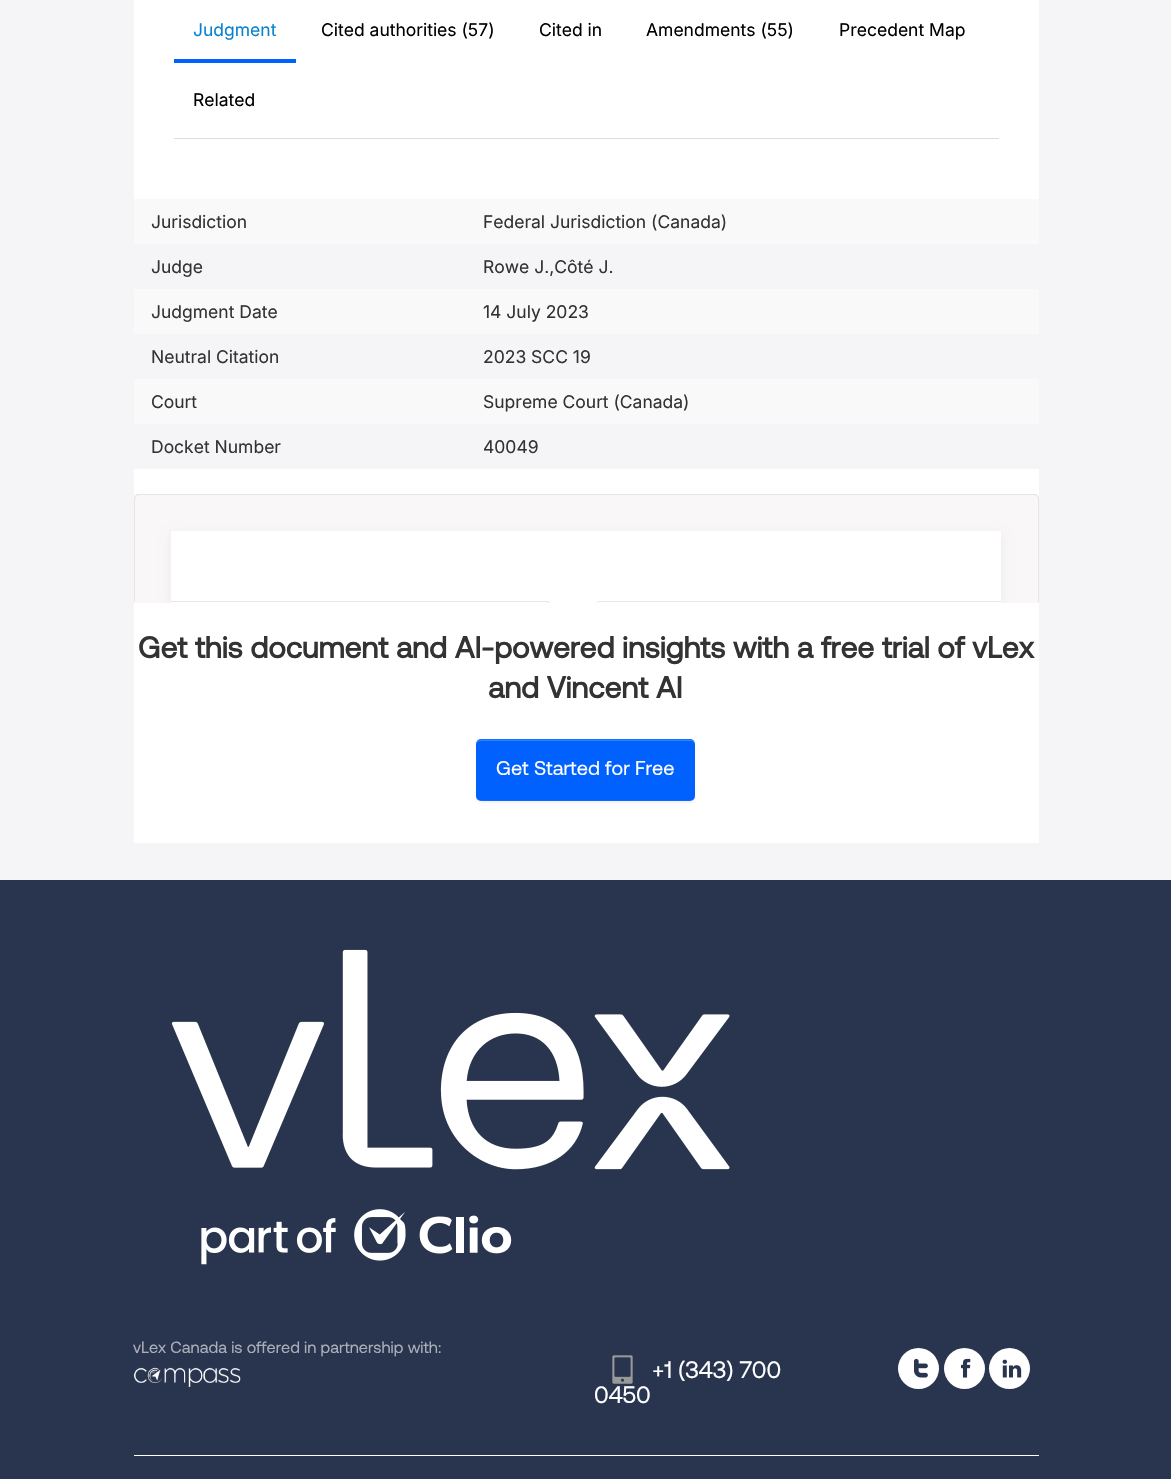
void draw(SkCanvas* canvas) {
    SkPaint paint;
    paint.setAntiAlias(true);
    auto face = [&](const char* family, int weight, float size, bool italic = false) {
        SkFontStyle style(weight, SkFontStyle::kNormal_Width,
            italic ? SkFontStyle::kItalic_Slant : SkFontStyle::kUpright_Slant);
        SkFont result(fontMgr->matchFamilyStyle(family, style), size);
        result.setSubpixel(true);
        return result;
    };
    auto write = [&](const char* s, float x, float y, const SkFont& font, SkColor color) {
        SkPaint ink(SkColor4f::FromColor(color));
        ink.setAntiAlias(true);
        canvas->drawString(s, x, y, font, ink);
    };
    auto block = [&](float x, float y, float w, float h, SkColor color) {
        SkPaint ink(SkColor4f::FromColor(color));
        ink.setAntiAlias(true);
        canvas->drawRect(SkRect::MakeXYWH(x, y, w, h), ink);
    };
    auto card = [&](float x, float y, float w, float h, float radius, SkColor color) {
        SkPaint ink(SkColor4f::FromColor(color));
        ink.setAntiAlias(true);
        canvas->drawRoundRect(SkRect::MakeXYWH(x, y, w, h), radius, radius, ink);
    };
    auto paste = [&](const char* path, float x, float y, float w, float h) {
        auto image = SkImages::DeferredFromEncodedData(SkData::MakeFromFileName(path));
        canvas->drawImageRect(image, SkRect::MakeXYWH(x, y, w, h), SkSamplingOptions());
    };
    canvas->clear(SkColorSetRGB(245, 245, 247));
    block(134, 0, 905, 843, SK_ColorWHITE);
    block(174, 138, 825, 1, SkColorSetRGB(221, 221, 221));
    auto kFont1 = face("Inter", 400, 17.5f);
    write("Judgment", 193, 36, kFont1, SkColorSetRGB(8, 130, 207));
    block(174, 59, 122, 4, SkColorSetRGB(1, 97, 255));
    write("Cited authorities (57)", 321, 36, kFont1, SK_ColorBLACK);
    write("Cited in", 539, 36, kFont1, SK_ColorBLACK);
    write("Amendments (55)", 646, 36, kFont1, SK_ColorBLACK);
    write("Precedent Map", 839, 36, kFont1, SK_ColorBLACK);
    write("Related", 193, 106, kFont1, SK_ColorBLACK);
    block(134, 199, 905, 45, SkColorSetRGB(249, 249, 249));
    write("Jurisdiction", 151, 228, kFont1, SkColorSetRGB(51, 51, 51));
    write("Federal Jurisdiction (Canada)", 483, 228, kFont1, SkColorSetRGB(51, 51, 51));
    block(134, 244, 905, 45, SkColorSetRGB(245, 245, 247));
    write("Judge", 151, 273, kFont1, SkColorSetRGB(51, 51, 51));
    write("Rowe J.,Côté J.", 483, 273, kFont1, SkColorSetRGB(51, 51, 51));
    block(134, 289, 905, 45, SkColorSetRGB(249, 249, 249));
    write("Judgment Date", 151, 318, kFont1, SkColorSetRGB(51, 51, 51));
    write("14 July 2023", 483, 318, kFont1, SkColorSetRGB(51, 51, 51));
    block(134, 334, 905, 45, SkColorSetRGB(245, 245, 247));
    write("Neutral Citation", 151, 363, kFont1, SkColorSetRGB(51, 51, 51));
    write("2023 SCC 19", 483, 363, kFont1, SkColorSetRGB(51, 51, 51));
    block(134, 379, 905, 45, SkColorSetRGB(249, 249, 249));
    write("Court", 151, 408, kFont1, SkColorSetRGB(51, 51, 51));
    write("Supreme Court (Canada)", 483, 408, kFont1, SkColorSetRGB(51, 51, 51));
    block(134, 424, 905, 45, SkColorSetRGB(245, 245, 247));
    write("Docket Number", 151, 453, kFont1, SkColorSetRGB(51, 51, 51));
    write("40049", 483, 453, kFont1, SkColorSetRGB(51, 51, 51));
    paint.setColor(SkColorSetRGB(249, 247, 247));
    canvas->drawPath(SkPathBuilder().moveTo(139, 494).lineTo(1034, 494).cubicTo(1037, 494, 1039, 496, 1039, 499).lineTo(1039, 603).lineTo(134, 603).lineTo(134, 499).cubicTo(134, 496, 136, 494, 139, 494).close().detach(), paint);
    paint.setColor(SkColorSetRGB(231, 228, 228));
    canvas->drawPath(SkPathBuilder(SkPathFillType::kEvenOdd).moveTo(139, 494).lineTo(1034, 494).cubicTo(1037, 494, 1039, 496, 1039, 499).lineTo(1039, 602).lineTo(134, 602).lineTo(134, 499).cubicTo(134, 496, 136, 494, 139, 494).close().moveTo(139, 495).lineTo(1034, 495).cubicTo(1036, 495, 1038, 497, 1038, 499).lineTo(1038, 602).lineTo(135, 602).lineTo(135, 499).cubicTo(135, 497, 137, 495, 139, 495).close().detach(), paint);
    canvas->save();
    canvas->clipPath(SkPathBuilder().moveTo(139, 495).lineTo(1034, 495).cubicTo(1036, 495, 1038, 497, 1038, 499).lineTo(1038, 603).lineTo(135, 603).lineTo(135, 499).cubicTo(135, 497, 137, 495, 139, 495).close().detach(), true);
    paint.setColor(SkColorSetARGB(15, 0, 0, 0));
    paint.setMaskFilter(SkMaskFilter::MakeBlur(kNormal_SkBlurStyle, 5));
    canvas->drawRect(SkRect::MakeXYWH(171, 534, 830, 71), paint);
    paint.setMaskFilter(nullptr);
    canvas->restore();
    block(171, 531, 830, 72, SK_ColorWHITE);
    block(171, 601, 830, 1, SkColorSetRGB(231, 231, 231));
    paint.setColor(SkColorSetRGB(231, 231, 231));
    canvas->drawPath(SkPathBuilder().moveTo(546, 601).lineTo(599, 601).lineTo(597, 603).lineTo(548, 603).close().detach(), paint);
    paint.setColor(SK_ColorWHITE);
    canvas->drawPath(SkPathBuilder().moveTo(548, 601).lineTo(598, 601).lineTo(596, 603).lineTo(550, 603).close().detach(), paint);
    auto kFont2 = face("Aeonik", 700, 30);
    write("Get this document and AI-powered insights with a free trial of vLex", 138, 658, kFont2, SkColorSetRGB(51, 51, 51));
    write("and Vincent AI", 488, 698, kFont2, SkColorSetRGB(51, 51, 51));
    paint.setColor(SkColorSetARGB(13, 0, 0, 0));
    paint.setMaskFilter(SkMaskFilter::MakeBlur(kNormal_SkBlurStyle, 1));
    canvas->drawRoundRect(SkRect::MakeXYWH(476, 740, 219, 63), 5, 5, paint);
    paint.setMaskFilter(nullptr);
    card(476, 739, 219, 62, 5, SkColorSetRGB(1, 97, 255));
    paint.setColor(SkColorSetARGB(51, 255, 255, 255));
    canvas->drawPath(SkPathBuilder().moveTo(481, 741).lineTo(690, 741).cubicTo(693, 741, 695, 743, 695, 745).lineTo(695, 744).cubicTo(695, 742, 693, 740, 690, 740).lineTo(481, 740).cubicTo(478, 740, 476, 742, 476, 744).cubicTo(477, 742, 479, 741, 481, 741).close().detach(), paint);
    paint.setColor(SkColorSetARGB(26, 168, 203, 255));
    canvas->drawPath(SkPathBuilder().moveTo(481, 739).lineTo(690, 739).cubicTo(693, 739, 695, 741, 695, 744).cubicTo(695, 742, 693, 740, 690, 740).lineTo(481, 740).cubicTo(479, 740, 477, 741, 476, 743).cubicTo(476, 740, 479, 739, 481, 739).close().detach(), paint);
    paint.setColor(SkColorSetARGB(26, 164, 189, 219));
    canvas->drawPath(SkPathBuilder().moveTo(690, 801).cubicTo(693, 801, 695, 799, 695, 796).cubicTo(695, 798, 693, 800, 690, 800).lineTo(481, 800).cubicTo(479, 800, 477, 799, 476, 797).cubicTo(476, 800, 479, 801, 481, 801).close().detach(), paint);
    auto kFont3 = face("Aeonik", 400, 20);
    write("Get Started for Free", 496, 775, kFont3, SK_ColorWHITE);
    block(0, 880, 1171, 599, SkColorSetRGB(41, 53, 78));
    block(134, 1455, 905, 1, SK_ColorWHITE);
    paste("pic1.png", 171, 949, 559, 316);
    auto kFont4 = face("Aeonik", 400, 16.25f);
    write("vLex Canada is offered in partnership with:", 133, 1353, kFont4, SkColorSetRGB(169, 174, 184));
    paste("pic2.png", 133, 1367, 108, 20);
    paste("pic3.png", 612, 1355, 21, 29);
    auto kFont5 = face("Aeonik", 400, 23.75f);
    write("+1 (343) 700", 652, 1378, kFont5, SK_ColorWHITE);
    write("0450", 594, 1403, kFont5, SK_ColorWHITE);
    paint.setColor(SK_ColorWHITE);
    canvas->drawCircle(918.5f, 1368.5f, 20.5f, paint);
    paste("pic4.png", 914, 1358, 14, 20);
    canvas->drawCircle(964.5f, 1368.5f, 20.5f, paint);
    paste("pic5.png", 960, 1358, 11, 20);
    canvas->drawCircle(1009.5f, 1368.5f, 20.5f, paint);
    paste("pic6.png", 1002, 1359, 20, 19);
}
